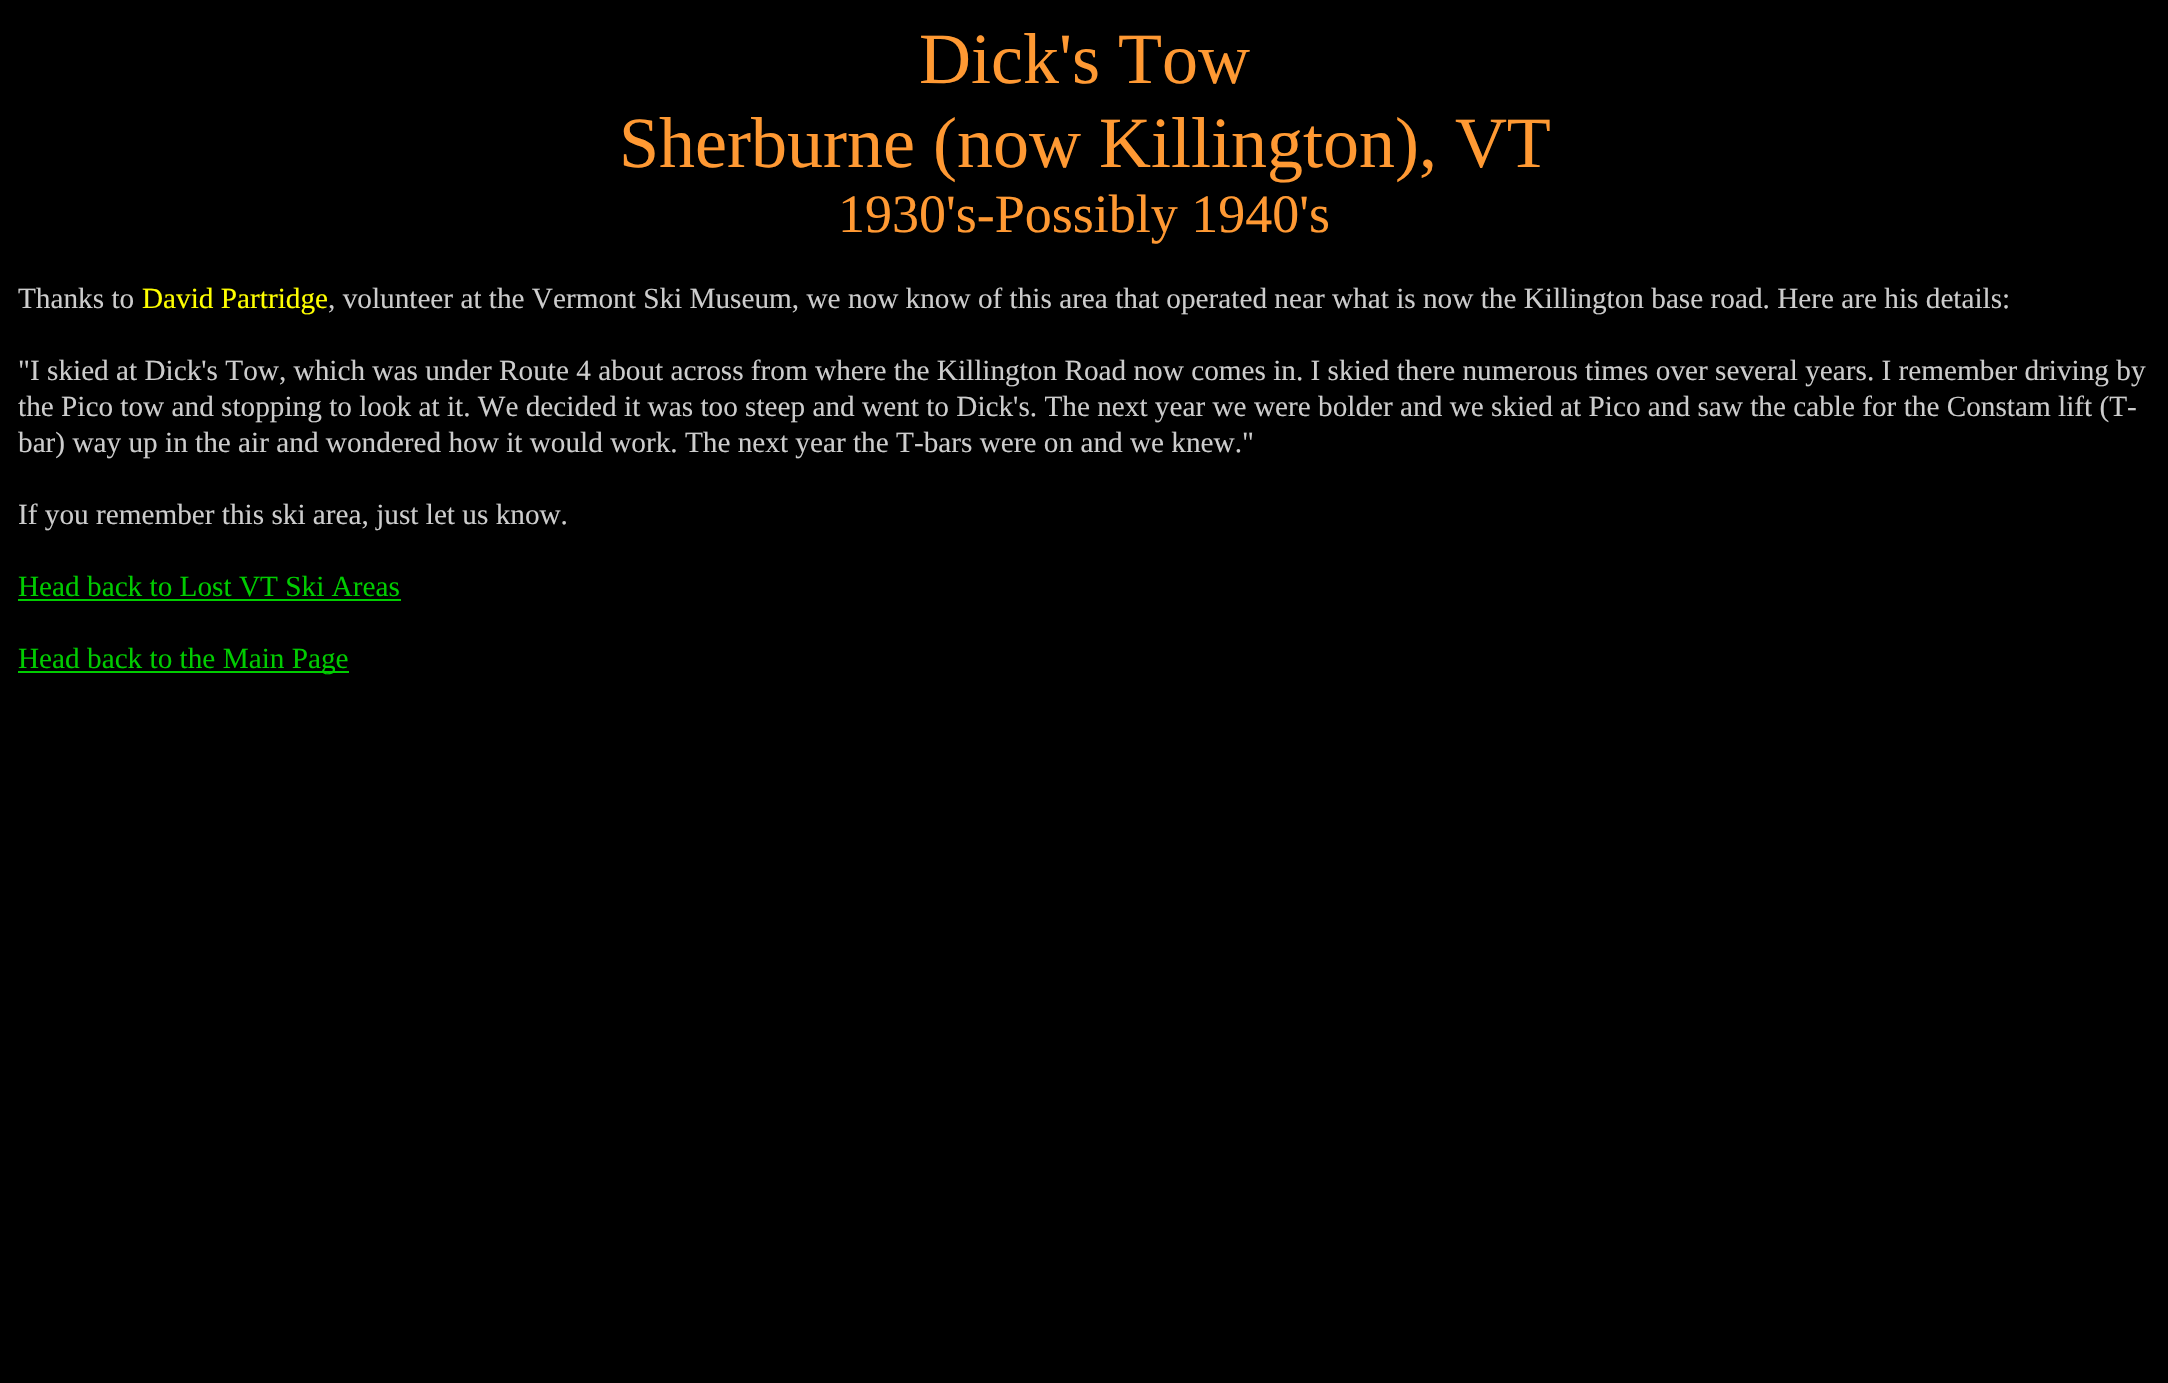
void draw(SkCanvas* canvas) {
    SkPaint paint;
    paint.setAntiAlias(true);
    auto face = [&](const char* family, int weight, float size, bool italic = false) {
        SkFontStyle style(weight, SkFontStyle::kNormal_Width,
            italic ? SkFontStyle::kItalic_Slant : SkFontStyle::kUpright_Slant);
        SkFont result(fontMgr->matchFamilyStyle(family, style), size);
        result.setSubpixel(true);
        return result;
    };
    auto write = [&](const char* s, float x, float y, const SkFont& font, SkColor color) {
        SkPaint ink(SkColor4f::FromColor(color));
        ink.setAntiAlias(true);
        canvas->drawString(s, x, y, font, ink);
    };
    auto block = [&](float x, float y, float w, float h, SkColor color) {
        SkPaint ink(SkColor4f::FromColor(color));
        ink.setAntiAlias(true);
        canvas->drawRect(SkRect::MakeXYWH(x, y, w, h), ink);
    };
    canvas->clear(SK_ColorBLACK);
    auto kFont1 = face("Liberation Serif", 400, 72);
    write("Dick's Tow", 919, 83, kFont1, SkColorSetRGB(255, 153, 51));
    write("Sherburne (now Killington), VT", 619, 167, kFont1, SkColorSetRGB(255, 153, 51));
    auto kFont2 = face("Liberation Serif", 400, 54);
    write("1930's-Possibly 1940's", 838, 232, kFont2, SkColorSetRGB(255, 153, 51));
    auto kFont3 = face("Liberation Serif", 400, 29.25f);
    write("Thanks to", 18, 308, kFont3, SkColorSetRGB(204, 204, 204));
    write("David Partridge", 142, 308, kFont3, SkColorSetRGB(255, 255, 0));
    write(", volunteer at the Vermont Ski Museum, we now know of this area that operated near what is now the Killington base road. Here are his details:", 328, 308, kFont3, SkColorSetRGB(204, 204, 204));
    write("\"I skied at Dick's Tow, which was under Route 4 about across from where the Killington Road now comes in. I skied there numerous times over several years. I remember driving by", 18, 380, kFont3, SkColorSetRGB(204, 204, 204));
    write("the Pico tow and stopping to look at it. We decided it was too steep and went to Dick's. The next year we were bolder and we skied at Pico and saw the cable for the Constam lift (T-", 18, 416, kFont3, SkColorSetRGB(204, 204, 204));
    write("bar) way up in the air and wondered how it would work. The next year the T-bars were on and we knew.\"", 18, 452, kFont3, SkColorSetRGB(204, 204, 204));
    write("If you remember this ski area, just let us know.", 18, 524, kFont3, SkColorSetRGB(204, 204, 204));
    write("Head back to Lost VT Ski Areas", 18, 596, kFont3, SkColorSetRGB(0, 204, 0));
    block(18, 599, 383, 2, SkColorSetRGB(0, 204, 0));
    block(18, 671, 331, 2, SkColorSetRGB(0, 204, 0));
    write("Head back to the Main Page", 18, 668, kFont3, SkColorSetRGB(0, 204, 0));
}
